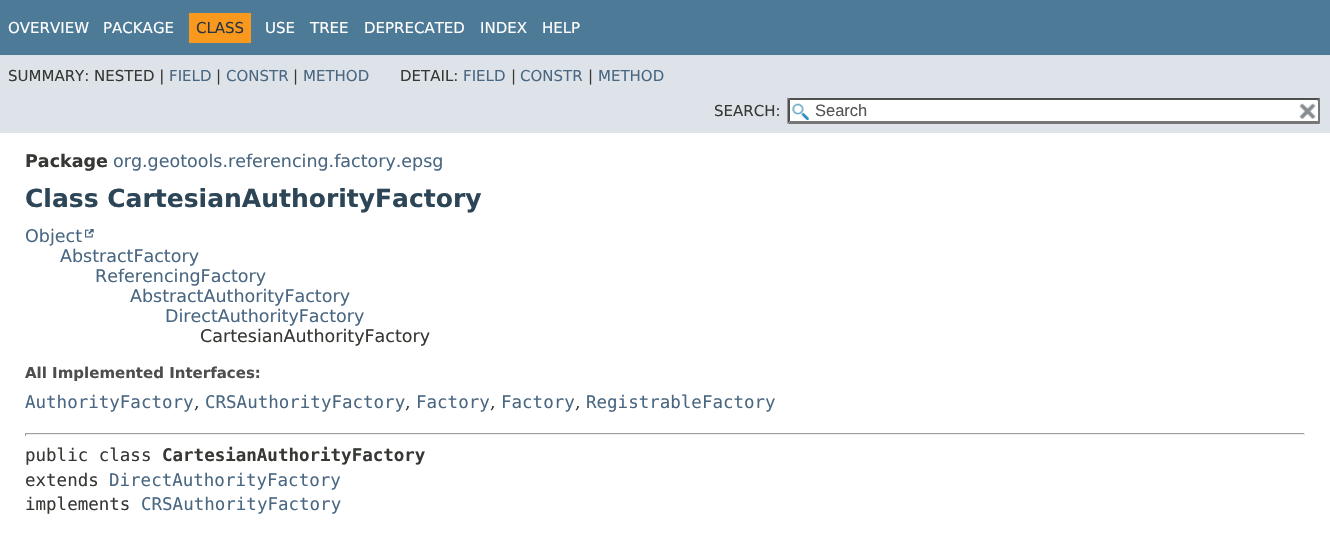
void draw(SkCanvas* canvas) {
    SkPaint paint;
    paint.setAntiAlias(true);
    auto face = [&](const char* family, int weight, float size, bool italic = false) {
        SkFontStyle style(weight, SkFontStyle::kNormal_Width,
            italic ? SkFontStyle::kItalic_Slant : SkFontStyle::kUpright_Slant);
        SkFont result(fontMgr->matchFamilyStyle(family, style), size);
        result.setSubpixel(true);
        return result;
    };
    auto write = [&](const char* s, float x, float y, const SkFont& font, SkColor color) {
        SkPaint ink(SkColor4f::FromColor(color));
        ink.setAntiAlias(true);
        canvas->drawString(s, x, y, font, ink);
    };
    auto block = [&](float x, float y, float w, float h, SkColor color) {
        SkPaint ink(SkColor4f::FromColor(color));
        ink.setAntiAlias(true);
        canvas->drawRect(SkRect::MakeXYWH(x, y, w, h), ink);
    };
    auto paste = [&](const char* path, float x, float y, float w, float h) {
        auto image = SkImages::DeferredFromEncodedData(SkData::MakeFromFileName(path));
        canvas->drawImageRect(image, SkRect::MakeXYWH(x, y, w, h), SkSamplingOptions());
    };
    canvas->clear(SK_ColorWHITE);
    block(0, 0, 1330, 55, SkColorSetRGB(77, 122, 151));
    auto kFont1 = face("DejaVu Sans", 400, 15);
    write("OVERVIEW", 8, 33, kFont1, SK_ColorWHITE);
    write("PACKAGE", 103, 33, kFont1, SK_ColorWHITE);
    block(189, 13, 62, 30, SkColorSetRGB(248, 152, 29));
    write("CLASS", 196, 33, kFont1, SkColorSetRGB(37, 52, 65));
    write("USE", 265, 33, kFont1, SK_ColorWHITE);
    write("TREE", 310, 33, kFont1, SK_ColorWHITE);
    write("DEPRECATED", 364, 33, kFont1, SK_ColorWHITE);
    write("INDEX", 480, 33, kFont1, SK_ColorWHITE);
    write("HELP", 542, 33, kFont1, SK_ColorWHITE);
    block(0, 55, 1330, 78, SkColorSetRGB(222, 227, 233));
    write("SUMMARY: NESTED |", 8, 81, kFont1, SkColorSetRGB(53, 56, 51));
    write("FIELD", 169, 81, kFont1, SkColorSetRGB(74, 103, 130));
    write("|", 216, 81, kFont1, SkColorSetRGB(53, 56, 51));
    write("CONSTR", 226, 81, kFont1, SkColorSetRGB(74, 103, 130));
    write("|", 293, 81, kFont1, SkColorSetRGB(53, 56, 51));
    write("METHOD", 303, 81, kFont1, SkColorSetRGB(74, 103, 130));
    write("DETAIL:", 400, 81, kFont1, SkColorSetRGB(53, 56, 51));
    write("FIELD", 463, 81, kFont1, SkColorSetRGB(74, 103, 130));
    write("|", 511, 81, kFont1, SkColorSetRGB(53, 56, 51));
    write("CONSTR", 520, 81, kFont1, SkColorSetRGB(74, 103, 130));
    write("|", 588, 81, kFont1, SkColorSetRGB(53, 56, 51));
    write("METHOD", 598, 81, kFont1, SkColorSetRGB(74, 103, 130));
    write("SEARCH:", 714, 116, kFont1, SkColorSetRGB(53, 56, 51));
    block(788, 98, 532, 26, SK_ColorWHITE);
    paste("pic1.png", 792, 103, 17, 17);
    paint.setColor(SkColorSetRGB(79, 79, 79));
    canvas->drawPath(SkPathBuilder().moveTo(788, 98).lineTo(1320, 98).lineTo(1318, 100).lineTo(790, 100).close().detach(), paint);
    paint.setColor(SkColorSetRGB(118, 118, 118));
    canvas->drawPath(SkPathBuilder().moveTo(1320, 97.5f).lineTo(1320, 124).lineTo(1317.5f, 121).lineTo(1317.5f, 100).close().detach(), paint);
    canvas->drawPath(SkPathBuilder().moveTo(1320, 124).lineTo(788, 124).lineTo(790, 121).lineTo(1318, 121).close().detach(), paint);
    paint.setColor(SkColorSetRGB(79, 79, 79));
    canvas->drawPath(SkPathBuilder().moveTo(787.5f, 124).lineTo(787.5f, 97.5f).lineTo(790, 100).lineTo(790, 121).close().detach(), paint);
    auto kFont2 = face("Liberation Sans", 400, 16.5f);
    write("Search", 815, 116, kFont2, SkColorSetRGB(84, 84, 84));
    block(1317, 101, 1, 20, SK_ColorWHITE);
    paste("pic2.png", 1299, 103, 17, 16);
    auto kFont3 = face("DejaVu Sans", 700, 17.5f);
    write("Package", 25, 167, kFont3, SkColorSetRGB(53, 56, 51));
    auto kFont4 = face("DejaVu Sans", 400, 17.5f);
    write("org.geotools.referencing.factory.epsg", 113, 167, kFont4, SkColorSetRGB(74, 103, 130));
    auto kFont5 = face("DejaVu Sans", 700, 25);
    write("Class CartesianAuthorityFactory", 25, 207, kFont5, SkColorSetRGB(44, 69, 87));
    write("Object", 25, 242, kFont4, SkColorSetRGB(74, 103, 130));
    paste("pic3.png", 85, 229, 9, 9);
    write("AbstractFactory", 60, 262, kFont4, SkColorSetRGB(74, 103, 130));
    write("ReferencingFactory", 95, 282, kFont4, SkColorSetRGB(74, 103, 130));
    write("AbstractAuthorityFactory", 130, 302, kFont4, SkColorSetRGB(74, 103, 130));
    write("DirectAuthorityFactory", 165, 322, kFont4, SkColorSetRGB(74, 103, 130));
    write("CartesianAuthorityFactory", 200, 342, kFont4, SkColorSetRGB(53, 56, 51));
    auto kFont6 = face("DejaVu Sans", 700, 15);
    write("All Implemented Interfaces:", 25, 378, kFont6, SkColorSetRGB(78, 78, 78));
    auto kFont7 = face("DejaVu Sans Mono", 400, 17.5f);
    write("AuthorityFactory", 25, 408, kFont7, SkColorSetRGB(74, 103, 130));
    auto kFont8 = face("DejaVu Serif", 400, 17.5f);
    write(",", 194, 408, kFont8, SkColorSetRGB(53, 56, 51));
    write("CRSAuthorityFactory", 205, 408, kFont7, SkColorSetRGB(74, 103, 130));
    write(",", 405, 408, kFont8, SkColorSetRGB(53, 56, 51));
    write("Factory", 416, 408, kFont7, SkColorSetRGB(74, 103, 130));
    write(",", 490, 408, kFont8, SkColorSetRGB(53, 56, 51));
    write("Factory", 501, 408, kFont7, SkColorSetRGB(74, 103, 130));
    write(",", 575, 408, kFont8, SkColorSetRGB(53, 56, 51));
    write("RegistrableFactory", 586, 408, kFont7, SkColorSetRGB(74, 103, 130));
    block(25, 433, 1280, 1, SkColorSetRGB(159, 159, 159));
    block(1304, 433, 1, 3, SkColorSetRGB(238, 238, 238));
    block(25, 434, 1280, 1, SkColorSetRGB(238, 238, 238));
    block(25, 433, 1, 3, SkColorSetRGB(159, 159, 159));
    write("public class", 25, 461, kFont7, SkColorSetRGB(53, 56, 51));
    auto kFont9 = face("DejaVu Sans Mono", 700, 17.5f);
    write("CartesianAuthorityFactory", 162, 461, kFont9, SkColorSetRGB(53, 56, 51));
    write("extends", 25, 486, kFont7, SkColorSetRGB(53, 56, 51));
    write("DirectAuthorityFactory", 109, 486, kFont7, SkColorSetRGB(74, 103, 130));
    write("implements", 25, 510, kFont7, SkColorSetRGB(53, 56, 51));
    write("CRSAuthorityFactory", 141, 510, kFont7, SkColorSetRGB(74, 103, 130));
}
